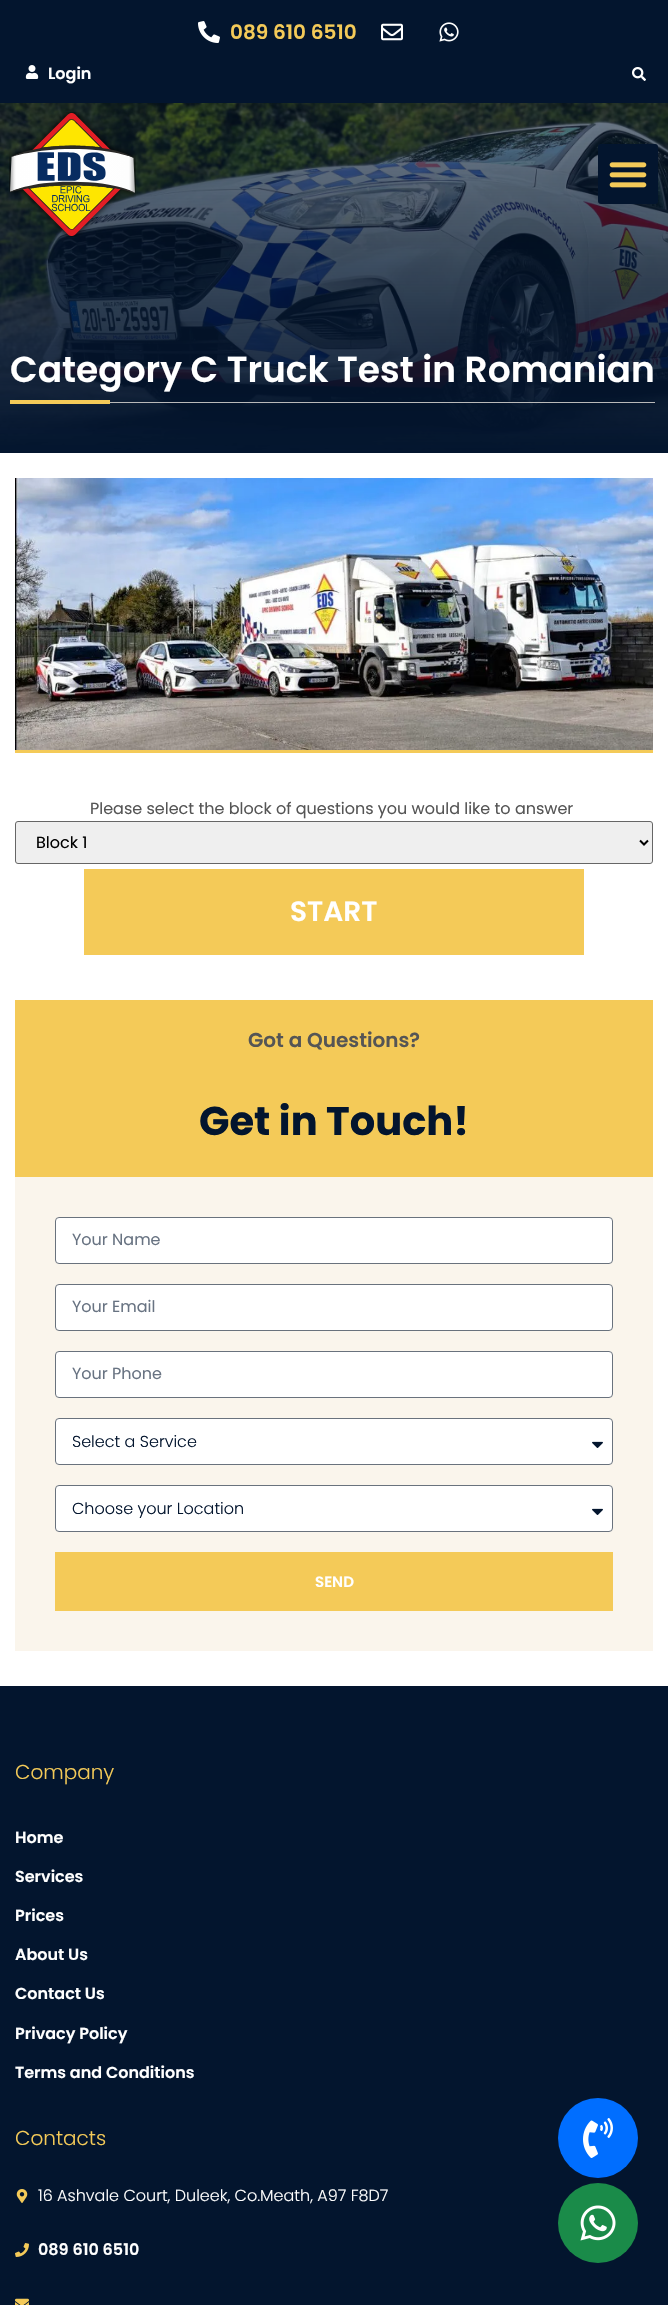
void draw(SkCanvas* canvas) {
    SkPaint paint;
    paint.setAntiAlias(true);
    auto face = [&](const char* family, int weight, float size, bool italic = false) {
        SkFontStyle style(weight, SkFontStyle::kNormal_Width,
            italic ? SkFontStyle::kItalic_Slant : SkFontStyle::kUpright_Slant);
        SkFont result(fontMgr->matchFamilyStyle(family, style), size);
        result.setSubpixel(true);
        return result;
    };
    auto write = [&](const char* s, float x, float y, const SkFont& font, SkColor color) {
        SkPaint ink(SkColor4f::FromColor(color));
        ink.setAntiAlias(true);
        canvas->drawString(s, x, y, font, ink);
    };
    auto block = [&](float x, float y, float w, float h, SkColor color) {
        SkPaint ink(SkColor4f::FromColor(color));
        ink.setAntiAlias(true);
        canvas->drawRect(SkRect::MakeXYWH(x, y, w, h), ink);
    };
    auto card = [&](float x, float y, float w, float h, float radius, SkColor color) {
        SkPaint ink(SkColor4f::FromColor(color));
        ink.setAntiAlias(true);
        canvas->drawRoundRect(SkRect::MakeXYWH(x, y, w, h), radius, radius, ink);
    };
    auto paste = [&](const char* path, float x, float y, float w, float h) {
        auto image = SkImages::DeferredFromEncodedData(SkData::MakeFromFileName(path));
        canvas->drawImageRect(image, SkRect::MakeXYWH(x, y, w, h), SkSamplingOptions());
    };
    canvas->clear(SK_ColorWHITE);
    block(0, 0, 668, 103, SkColorSetRGB(3, 21, 46));
    paste("pic1.png", 198, 21, 22, 22);
    auto kFont1 = face("Poppins", 600, 20);
    write("089 610 6510", 230, 39, kFont1, SkColorSetRGB(244, 202, 88));
    paste("pic2.png", 381, 23, 22, 18);
    paste("pic3.png", 439, 22, 20, 20);
    paste("pic4.png", 25, 65, 14, 14);
    auto kFont2 = face("Poppins", 600, 16);
    write("Login", 48, 79, kFont2, SK_ColorWHITE);
    paste("pic5.png", 632, 67, 14, 14);
    paste("pic8.png", 0, 103, 668, 350);
    paste("pic6.png", 9, 112, 127, 125);
    card(598, 144, 60, 60, 3, SkColorSetRGB(3, 21, 46));
    paste("pic7.png", 609, 162, 38, 26);
    block(110, 402, 545, 1, SkColorSetRGB(185, 185, 185));
    auto kFont3 = face("Poppins", 600, 36);
    write("Category C Truck Test in Romanian", 10, 382, kFont3, SK_ColorWHITE);
    block(10, 400, 100, 4, SkColorSetRGB(244, 202, 88));
    block(15, 750, 638, 3, SkColorSetRGB(244, 202, 88));
    paste("pic9.png", 15, 478, 638, 272);
    auto kFont4 = face("Poppins", 400, 16);
    write("Please select the block of questions you would like to answer", 90, 814, kFont4, SkColorSetRGB(85, 85, 85));
    paint.setColor(SkColorSetRGB(239, 239, 239));
    canvas->drawRoundRect(SkRect::MakeXYWH(15.5f, 821.5f, 637, 42), 2.5f, 2.5f, paint);
    paint.setStyle(SkPaint::kStroke_Style);
    paint.setStrokeWidth(1);
    paint.setColor(SkColorSetRGB(102, 102, 102));
    canvas->drawRoundRect(SkRect::MakeXYWH(15.5f, 821.5f, 637, 42), 2.5f, 2.5f, paint);
    paint.setStrokeWidth(2);
    paint.setColor(SK_ColorBLACK);
    canvas->drawPath(SkPathBuilder().moveTo(640, 840.5f).lineTo(644, 844.5f).lineTo(648, 840.5f).detach(), paint);
    write("Block 1", 36, 848, kFont4, SK_ColorBLACK);
    block(84, 869, 500, 86, SkColorSetRGB(244, 202, 88));
    auto kFont5 = face("Poppins", 600, 28);
    write("START", 290, 921, kFont5, SK_ColorWHITE);
    block(15, 1000, 638, 177, SkColorSetRGB(244, 202, 88));
    write("Got a Questions?", 248, 1047, kFont1, SkColorSetRGB(85, 85, 85));
    auto kFont6 = face("Poppins", 700, 40);
    write("Get in Touch!", 199, 1135, kFont6, SkColorSetRGB(3, 21, 46));
    block(15, 1177, 638, 474, SkColorSetRGB(250, 245, 236));
    paint.setStyle(SkPaint::kFill_Style);
    paint.setColor(SK_ColorWHITE);
    canvas->drawRoundRect(SkRect::MakeXYWH(55.5f, 1217.5f, 557, 46), 3.5f, 3.5f, paint);
    paint.setStyle(SkPaint::kStroke_Style);
    paint.setStrokeWidth(1);
    paint.setColor(SkColorSetRGB(105, 114, 125));
    canvas->drawRoundRect(SkRect::MakeXYWH(55.5f, 1217.5f, 557, 46), 3.5f, 3.5f, paint);
    write("Your Name", 72, 1245, kFont4, SkColorSetRGB(104, 115, 130));
    paint.setStyle(SkPaint::kFill_Style);
    paint.setColor(SK_ColorWHITE);
    canvas->drawRoundRect(SkRect::MakeXYWH(55.5f, 1284.5f, 557, 46), 3.5f, 3.5f, paint);
    paint.setStyle(SkPaint::kStroke_Style);
    paint.setColor(SkColorSetRGB(105, 114, 125));
    canvas->drawRoundRect(SkRect::MakeXYWH(55.5f, 1284.5f, 557, 46), 3.5f, 3.5f, paint);
    write("Your Email", 72, 1312, kFont4, SkColorSetRGB(104, 115, 130));
    paint.setStyle(SkPaint::kFill_Style);
    paint.setColor(SK_ColorWHITE);
    canvas->drawRoundRect(SkRect::MakeXYWH(55.5f, 1351.5f, 557, 46), 3.5f, 3.5f, paint);
    paint.setStyle(SkPaint::kStroke_Style);
    paint.setColor(SkColorSetRGB(105, 114, 125));
    canvas->drawRoundRect(SkRect::MakeXYWH(55.5f, 1351.5f, 557, 46), 3.5f, 3.5f, paint);
    write("Your Phone", 72, 1379, kFont4, SkColorSetRGB(104, 115, 130));
    paint.setStyle(SkPaint::kFill_Style);
    paint.setColor(SK_ColorWHITE);
    canvas->drawRoundRect(SkRect::MakeXYWH(55.5f, 1418.5f, 557, 46), 3.5f, 3.5f, paint);
    paint.setStyle(SkPaint::kStroke_Style);
    paint.setColor(SkColorSetRGB(105, 114, 125));
    canvas->drawRoundRect(SkRect::MakeXYWH(55.5f, 1418.5f, 557, 46), 3.5f, 3.5f, paint);
    auto kFont7 = face("Poppins", 300, 16);
    write("Select a Service", 72, 1447, kFont7, SkColorSetRGB(3, 21, 46));
    paste("pic10.png", 592, 1441, 11, 7);
    paint.setStyle(SkPaint::kFill_Style);
    paint.setColor(SK_ColorWHITE);
    canvas->drawRoundRect(SkRect::MakeXYWH(55.5f, 1485.5f, 557, 46), 3.5f, 3.5f, paint);
    paint.setStyle(SkPaint::kStroke_Style);
    paint.setColor(SkColorSetRGB(105, 114, 125));
    canvas->drawRoundRect(SkRect::MakeXYWH(55.5f, 1485.5f, 557, 46), 3.5f, 3.5f, paint);
    write("Choose your Location", 72, 1514, kFont7, SkColorSetRGB(3, 21, 46));
    paste("pic10.png", 592, 1508, 11, 7);
    block(55, 1552, 558, 59, SkColorSetRGB(244, 202, 88));
    auto kFont8 = face("Poppins", 600, 15);
    write("SEND", 315, 1587, kFont8, SK_ColorWHITE);
    block(0, 1686, 668, 619, SkColorSetRGB(3, 21, 46));
    auto kFont9 = face("Poppins", 300, 20);
    write("Company", 15, 1779, kFont9, SkColorSetRGB(244, 202, 88));
    write("Home", 15, 1843, kFont2, SK_ColorWHITE);
    write("Services", 15, 1882, kFont2, SK_ColorWHITE);
    write("Prices", 15, 1921, kFont2, SK_ColorWHITE);
    write("About Us", 15, 1960, kFont2, SK_ColorWHITE);
    write("Contact Us", 15, 1999, kFont2, SK_ColorWHITE);
    write("Privacy Policy", 15, 2039, kFont2, SK_ColorWHITE);
    write("Terms and Conditions", 15, 2078, kFont2, SK_ColorWHITE);
    write("Contacts", 15, 2145, kFont9, SkColorSetRGB(244, 202, 88));
    paste("pic11.png", 16, 2189, 12, 14);
    write("16 Ashvale Court, Duleek, Co.Meath, A97 F8D7", 38, 2201, kFont7, SK_ColorWHITE);
    paste("pic12.png", 15, 2243, 14, 14);
    write("089 610 6510", 38, 2255, kFont2, SK_ColorWHITE);
    paste("pic13.png", 15, 2298, 14, 7);
    paint.setStyle(SkPaint::kFill_Style);
    paint.setColor(SkColorSetRGB(0, 110, 255));
    canvas->drawCircle(598, 2138, 40, paint);
    paste("pic14.png", 583, 2118, 30, 40);
    paint.setColor(SkColorSetRGB(26, 139, 73));
    canvas->drawCircle(598, 2223, 40, paint);
    paste("pic15.png", 580, 2205, 36, 36);
}
